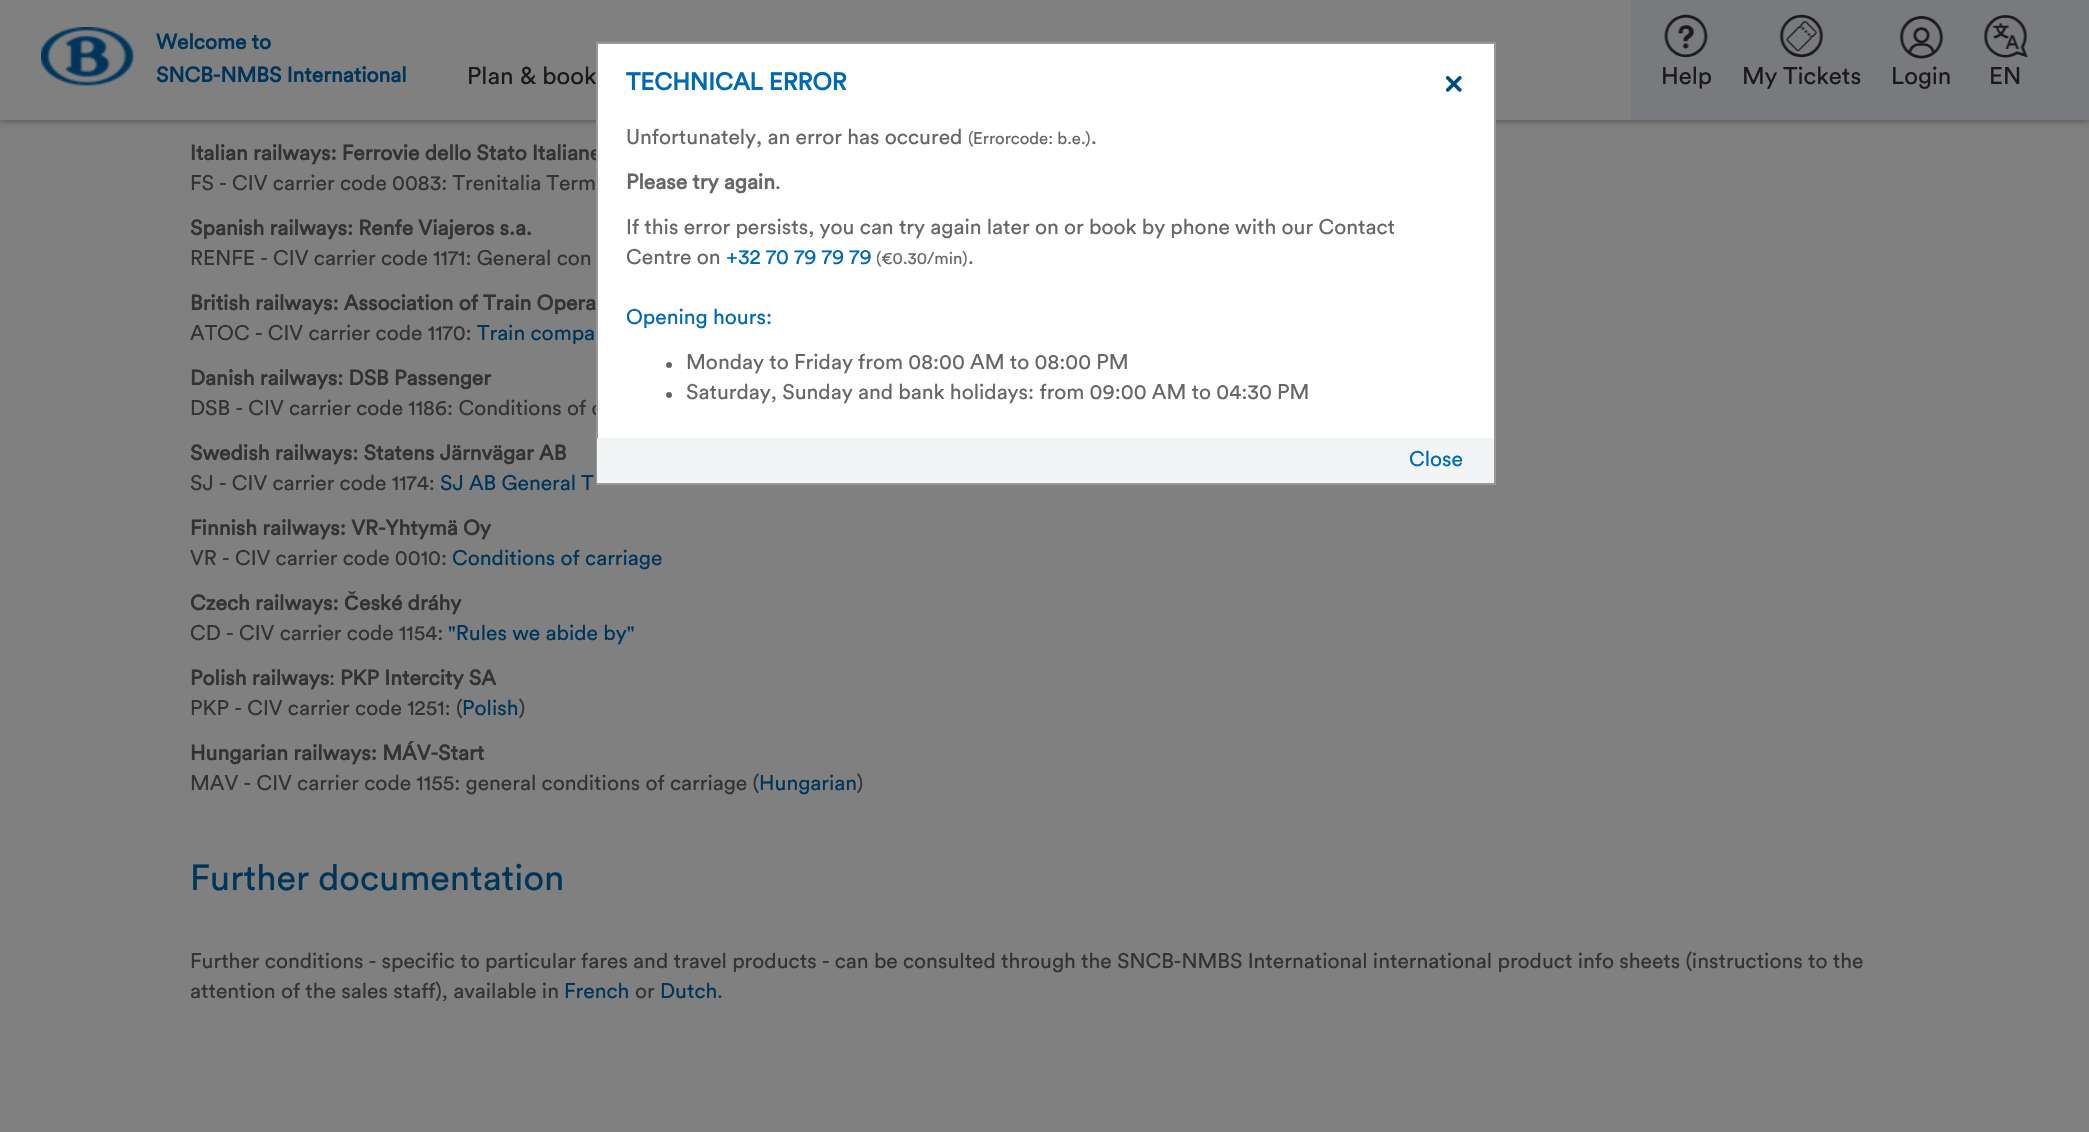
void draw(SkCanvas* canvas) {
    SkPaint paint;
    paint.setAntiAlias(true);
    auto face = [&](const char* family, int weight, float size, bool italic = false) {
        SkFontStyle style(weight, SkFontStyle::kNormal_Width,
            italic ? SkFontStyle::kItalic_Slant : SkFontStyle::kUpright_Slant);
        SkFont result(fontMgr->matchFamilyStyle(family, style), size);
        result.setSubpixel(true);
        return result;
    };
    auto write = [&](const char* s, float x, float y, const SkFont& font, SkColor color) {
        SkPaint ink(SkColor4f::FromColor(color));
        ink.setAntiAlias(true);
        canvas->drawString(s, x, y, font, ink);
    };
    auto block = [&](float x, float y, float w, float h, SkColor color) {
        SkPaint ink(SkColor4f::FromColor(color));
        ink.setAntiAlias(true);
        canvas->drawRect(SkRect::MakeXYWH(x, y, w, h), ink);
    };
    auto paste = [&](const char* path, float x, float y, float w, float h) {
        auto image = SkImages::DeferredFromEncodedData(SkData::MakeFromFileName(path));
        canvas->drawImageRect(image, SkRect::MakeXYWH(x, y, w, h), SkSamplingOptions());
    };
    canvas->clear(SkColorSetRGB(128, 128, 128));
    paint.setColor(SkColorSetRGB(68, 68, 68));
    paint.setMaskFilter(SkMaskFilter::MakeBlur(kNormal_SkBlurStyle, 4));
    canvas->drawRect(SkRect::MakeXYWH(0, 0, 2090, 120), paint);
    paint.setMaskFilter(nullptr);
    block(0, 0, 1631, 120, SkColorSetRGB(128, 128, 128));
    paste("pic1.png", 41, 27, 93, 59);
    auto kFont1 = face("Circular", 700, 21);
    write("Welcome to", 156, 49, kFont1, SkColorSetRGB(0, 53, 90));
    write("SNCB-NMBS International", 156, 82, kFont1, SkColorSetRGB(0, 53, 90));
    auto kFont2 = face("Circular", 400, 24);
    write("Plan & book", 467, 84, kFont2, SkColorSetRGB(26, 26, 26));
    block(1631, 0, 458, 120, SkColorSetRGB(120, 122, 125));
    paste("pic2.png", 1664, 14, 44, 44);
    write("Help", 1661, 84, kFont2, SkColorSetRGB(26, 26, 26));
    paste("pic3.png", 1779, 14, 45, 44);
    write("My Tickets", 1742, 84, kFont2, SkColorSetRGB(26, 26, 26));
    paste("pic4.png", 1899, 16, 45, 43);
    write("Login", 1891, 84, kFont2, SkColorSetRGB(26, 26, 26));
    paste("pic5.png", 1983, 15, 46, 43);
    write("EN", 1989, 84, kFont2, SkColorSetRGB(26, 26, 26));
    write("Italian railways: Ferrovie dello Stato Italiane", 190, 160, kFont1, SkColorSetRGB(51, 51, 51));
    auto kFont3 = face("Circular", 400, 21);
    write("DSB - CIV carrier code 1186: Conditions of c", 190, 415, kFont3, SkColorSetRGB(51, 51, 51));
    block(598, 44, 896, 394, SK_ColorWHITE);
    paint.setStyle(SkPaint::kStroke_Style);
    paint.setStrokeWidth(2);
    paint.setColor(SkColorSetRGB(153, 153, 153));
    canvas->drawRect(SkRect::MakeXYWH(597, 43, 898, 441), paint);
    auto kFont4 = face("Circular", 700, 24);
    write("TECHNICAL ERROR", 626, 90, kFont4, SkColorSetRGB(0, 105, 180));
    paste("pic6.png", 1445, 76, 17, 16);
    write("Unfortunately, an error has occured", 626, 144, kFont3, SkColorSetRGB(102, 102, 102));
    auto kFont5 = face("Circular", 400, 16.75f);
    write("(Errorcode: b.e.)", 968, 144, kFont5, SkColorSetRGB(102, 102, 102));
    write(".", 1091, 144, kFont3, SkColorSetRGB(102, 102, 102));
    write("Please try again", 626, 189, kFont1, SkColorSetRGB(102, 102, 102));
    write(".", 775, 189, kFont3, SkColorSetRGB(102, 102, 102));
    write("If this error persists, you can try again later on or book by phone with our Contact", 626, 234, kFont3, SkColorSetRGB(102, 102, 102));
    write("Centre on", 626, 264, kFont3, SkColorSetRGB(102, 102, 102));
    write("+32 70 79 79 79", 726, 264, kFont3, SkColorSetRGB(0, 105, 180));
    write("(€0.30/min)", 876, 264, kFont5, SkColorSetRGB(102, 102, 102));
    write(".", 968, 264, kFont3, SkColorSetRGB(102, 102, 102));
    write("Opening hours:", 626, 324, kFont3, SkColorSetRGB(0, 105, 180));
    paint.setStyle(SkPaint::kFill_Style);
    paint.setColor(SkColorSetRGB(102, 102, 102));
    canvas->drawCircle(669, 365, 3, paint);
    write("Monday to Friday from 08:00 AM to 08:00 PM", 686, 369, kFont3, SkColorSetRGB(102, 102, 102));
    canvas->drawCircle(669, 395, 3, paint);
    write("Saturday, Sunday and bank holidays: from 09:00 AM to 04:30 PM", 686, 399, kFont3, SkColorSetRGB(102, 102, 102));
    block(597, 438, 897, 45, SkColorSetRGB(241, 245, 245));
    write("Close", 1409, 466, kFont3, SkColorSetRGB(0, 105, 180));
    write("FS - CIV carrier code 0083: Trenitalia Term", 190, 190, kFont3, SkColorSetRGB(51, 51, 51));
    write("Spanish railways: Renfe Viajeros s.a.", 190, 235, kFont1, SkColorSetRGB(51, 51, 51));
    write("RENFE - CIV carrier code 1171: General con", 190, 265, kFont3, SkColorSetRGB(51, 51, 51));
    write("British railways: Association of Train Opera", 190, 310, kFont1, SkColorSetRGB(51, 51, 51));
    write("ATOC - CIV carrier code 1170:", 190, 340, kFont3, SkColorSetRGB(51, 51, 51));
    write("Train compa", 477, 340, kFont3, SkColorSetRGB(0, 53, 90));
    write("Danish railways: DSB Passenger", 190, 385, kFont1, SkColorSetRGB(51, 51, 51));
    write("Swedish railways: Statens Järnvägar AB", 190, 460, kFont1, SkColorSetRGB(51, 51, 51));
    write("SJ - CIV carrier code 1174:", 190, 490, kFont3, SkColorSetRGB(51, 51, 51));
    write("SJ AB General T", 440, 490, kFont3, SkColorSetRGB(0, 53, 90));
    write("Finnish railways: VR-Yhtymä Oy", 190, 535, kFont1, SkColorSetRGB(51, 51, 51));
    write("VR - CIV carrier code 0010:", 190, 565, kFont3, SkColorSetRGB(51, 51, 51));
    write("Conditions of carriage", 452, 565, kFont3, SkColorSetRGB(0, 53, 90));
    write("Czech railways:", 190, 610, kFont1, SkColorSetRGB(51, 51, 51));
    auto kFont6 = face("Liberation Sans", 700, 21);
    write("Č", 344, 610, kFont6, SkColorSetRGB(51, 51, 51));
    write("eské dráhy", 359, 610, kFont1, SkColorSetRGB(51, 51, 51));
    write("CD - CIV carrier code 1154:", 190, 640, kFont3, SkColorSetRGB(51, 51, 51));
    write("\"Rules we abide by\"", 448, 640, kFont3, SkColorSetRGB(0, 53, 90));
    write("Polish railways", 190, 685, kFont1, SkColorSetRGB(51, 51, 51));
    write(":", 329, 685, kFont3, SkColorSetRGB(51, 51, 51));
    write("PKP Intercity SA", 340, 685, kFont1, SkColorSetRGB(51, 51, 51));
    write("PKP - CIV carrier code 1251: (", 190, 715, kFont3, SkColorSetRGB(51, 51, 51));
    write("Polish", 462, 715, kFont3, SkColorSetRGB(0, 53, 90));
    write(")", 519, 715, kFont3, SkColorSetRGB(51, 51, 51));
    write("Hungarian railways: MÁV-Start", 190, 760, kFont1, SkColorSetRGB(51, 51, 51));
    write("MAV - CIV carrier code 1155: general conditions of carriage (", 190, 790, kFont3, SkColorSetRGB(51, 51, 51));
    write("Hungarian", 759, 790, kFont3, SkColorSetRGB(0, 53, 90));
    write(")", 857, 790, kFont3, SkColorSetRGB(51, 51, 51));
    auto kFont7 = face("Circular", 400, 36);
    write("Further documentation", 190, 890, kFont7, SkColorSetRGB(0, 53, 90));
    write("Further conditions - specific to particular fares and travel products - can be consulted through the SNCB-NMBS International international product info sheets (instructions to the", 190, 968, kFont3, SkColorSetRGB(51, 51, 51));
    write("attention of the sales staff), available in", 190, 998, kFont3, SkColorSetRGB(51, 51, 51));
    write("French", 564, 998, kFont3, SkColorSetRGB(0, 53, 90));
    write("or", 635, 998, kFont3, SkColorSetRGB(51, 51, 51));
    write("Dutch", 660, 998, kFont3, SkColorSetRGB(0, 53, 90));
    write(".", 717, 998, kFont3, SkColorSetRGB(51, 51, 51));
}
